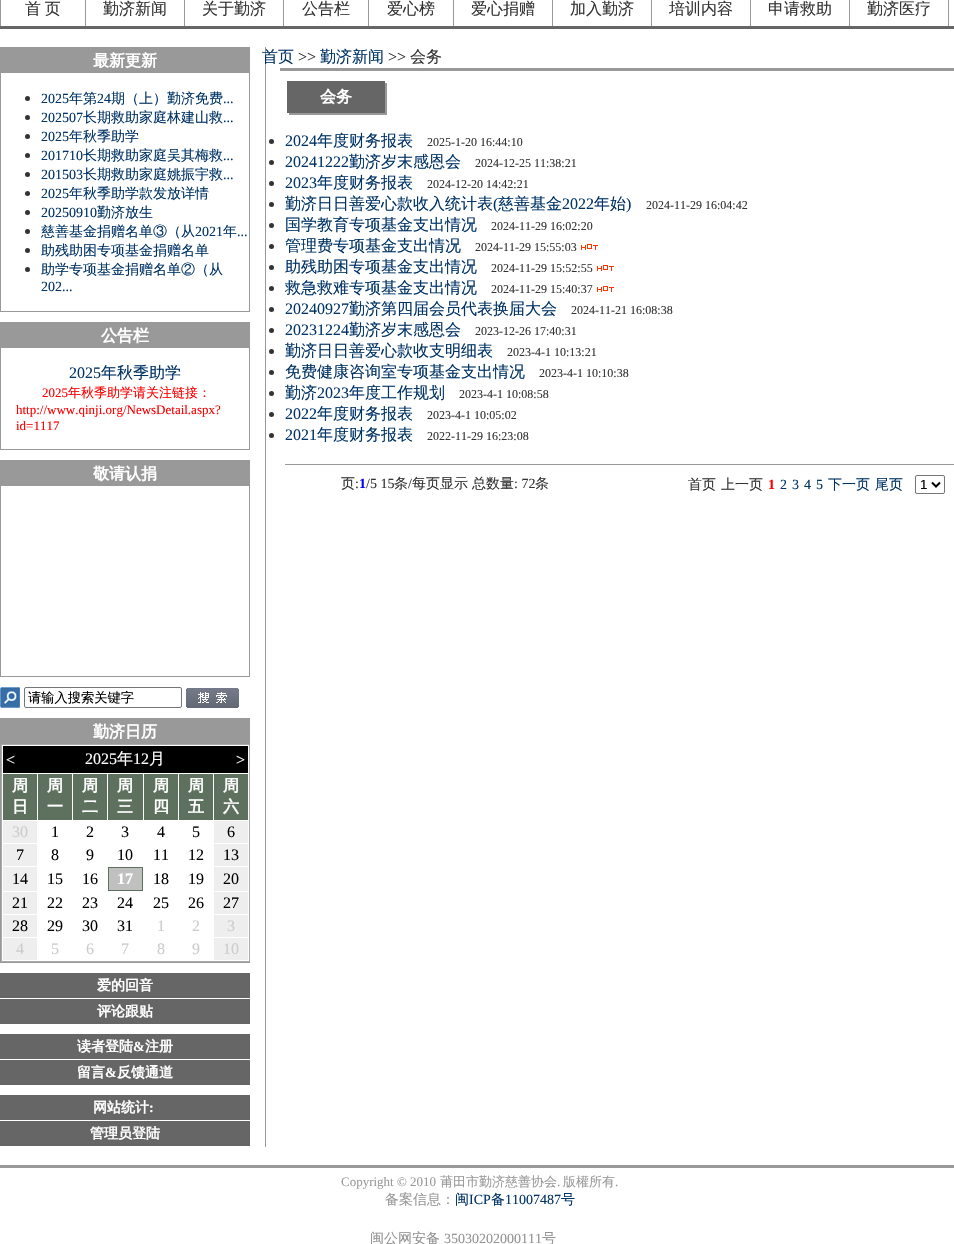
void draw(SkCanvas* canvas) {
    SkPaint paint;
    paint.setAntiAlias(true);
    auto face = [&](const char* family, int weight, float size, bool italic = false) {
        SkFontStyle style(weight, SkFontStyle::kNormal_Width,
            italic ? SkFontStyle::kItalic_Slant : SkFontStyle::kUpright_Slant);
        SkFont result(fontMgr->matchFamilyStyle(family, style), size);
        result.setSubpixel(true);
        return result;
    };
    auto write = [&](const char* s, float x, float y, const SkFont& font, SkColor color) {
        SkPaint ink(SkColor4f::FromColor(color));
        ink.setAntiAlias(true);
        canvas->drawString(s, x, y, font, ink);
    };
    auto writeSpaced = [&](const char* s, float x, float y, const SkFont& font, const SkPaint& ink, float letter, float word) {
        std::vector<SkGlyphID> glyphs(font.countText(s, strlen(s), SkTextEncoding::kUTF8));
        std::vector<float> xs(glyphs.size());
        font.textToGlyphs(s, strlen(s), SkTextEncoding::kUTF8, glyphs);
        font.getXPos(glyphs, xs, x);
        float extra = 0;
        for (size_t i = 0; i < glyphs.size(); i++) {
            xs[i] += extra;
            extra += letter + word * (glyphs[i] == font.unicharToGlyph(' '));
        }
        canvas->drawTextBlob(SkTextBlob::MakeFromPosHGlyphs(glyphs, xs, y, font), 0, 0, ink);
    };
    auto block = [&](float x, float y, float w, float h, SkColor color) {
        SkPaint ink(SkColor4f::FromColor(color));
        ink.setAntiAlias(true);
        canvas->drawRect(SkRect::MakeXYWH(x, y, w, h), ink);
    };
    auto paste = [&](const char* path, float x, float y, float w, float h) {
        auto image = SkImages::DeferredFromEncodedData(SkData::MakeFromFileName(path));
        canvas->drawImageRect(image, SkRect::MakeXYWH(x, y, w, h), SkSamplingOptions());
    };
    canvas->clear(SK_ColorWHITE);
    block(0, 0, 1, 26, SkColorSetRGB(153, 153, 153));
    block(85, 0, 1, 26, SkColorSetRGB(153, 153, 153));
    auto kFont1 = face("WenQuanYi Zen Hei", 500, 16);
    paint.setColor(SkColorSetRGB(51, 51, 51));
    writeSpaced("首 页", 25, 14, kFont1, paint, 0, -1);
    block(184, 0, 1, 26, SkColorSetRGB(153, 153, 153));
    write("勤济新闻", 103, 14, kFont1, SkColorSetRGB(51, 51, 51));
    block(283, 0, 1, 26, SkColorSetRGB(153, 153, 153));
    write("关于勤济", 202, 14, kFont1, SkColorSetRGB(51, 51, 51));
    block(368, 0, 1, 26, SkColorSetRGB(153, 153, 153));
    write("公告栏", 302, 14, kFont1, SkColorSetRGB(51, 51, 51));
    block(453, 0, 1, 26, SkColorSetRGB(153, 153, 153));
    write("爱心榜", 387, 14, kFont1, SkColorSetRGB(51, 51, 51));
    block(552, 0, 1, 26, SkColorSetRGB(153, 153, 153));
    write("爱心捐赠", 471, 14, kFont1, SkColorSetRGB(51, 51, 51));
    block(651, 0, 1, 26, SkColorSetRGB(153, 153, 153));
    write("加入勤济", 570, 14, kFont1, SkColorSetRGB(51, 51, 51));
    block(750, 0, 1, 26, SkColorSetRGB(153, 153, 153));
    write("培训内容", 669, 14, kFont1, SkColorSetRGB(51, 51, 51));
    block(849, 0, 1, 26, SkColorSetRGB(153, 153, 153));
    write("申请救助", 768, 14, kFont1, SkColorSetRGB(51, 51, 51));
    block(948, 0, 1, 26, SkColorSetRGB(153, 153, 153));
    write("勤济医疗", 867, 14, kFont1, SkColorSetRGB(51, 51, 51));
    block(0, 26, 954, 3, SkColorSetRGB(102, 102, 102));
    block(265, 47, 1, 1100, SkColorSetRGB(153, 153, 153));
    paint.setStyle(SkPaint::kStroke_Style);
    paint.setStrokeWidth(1);
    paint.setColor(SkColorSetRGB(153, 153, 153));
    canvas->drawRect(SkRect::MakeXYWH(0.5f, 47.5f, 249, 264), paint);
    block(1, 48, 248, 25, SkColorSetRGB(153, 153, 153));
    auto kFont2 = face("WenQuanYi Zen Hei", 700, 16);
    write("最新更新", 93, 66, kFont2, SK_ColorWHITE);
    paint.setStyle(SkPaint::kFill_Style);
    paint.setColor(SkColorSetRGB(51, 51, 51));
    canvas->drawCircle(27.5f, 98.5f, 2.5f, paint);
    auto kFont3 = face("Liberation Serif", 400, 14);
    write("2025", 41, 103, kFont3, SkColorSetRGB(0, 51, 102));
    auto kFont4 = face("WenQuanYi Zen Hei", 500, 14);
    write("年第", 69, 103, kFont4, SkColorSetRGB(0, 51, 102));
    write("24", 97, 103, kFont3, SkColorSetRGB(0, 51, 102));
    write("期（上）勤济免费", 111, 103, kFont4, SkColorSetRGB(0, 51, 102));
    write("...", 223, 103, kFont3, SkColorSetRGB(0, 51, 102));
    canvas->drawCircle(27.5f, 117.5f, 2.5f, paint);
    write("202507", 41, 122, kFont3, SkColorSetRGB(0, 51, 102));
    write("长期救助家庭林建山救", 83, 122, kFont4, SkColorSetRGB(0, 51, 102));
    write("...", 223, 122, kFont3, SkColorSetRGB(0, 51, 102));
    canvas->drawCircle(27.5f, 136.5f, 2.5f, paint);
    write("2025", 41, 141, kFont3, SkColorSetRGB(0, 51, 102));
    write("年秋季助学", 69, 141, kFont4, SkColorSetRGB(0, 51, 102));
    canvas->drawCircle(27.5f, 155.5f, 2.5f, paint);
    write("201710", 41, 160, kFont3, SkColorSetRGB(0, 51, 102));
    write("长期救助家庭吴其梅救", 83, 160, kFont4, SkColorSetRGB(0, 51, 102));
    write("...", 223, 160, kFont3, SkColorSetRGB(0, 51, 102));
    canvas->drawCircle(27.5f, 174.5f, 2.5f, paint);
    write("201503", 41, 179, kFont3, SkColorSetRGB(0, 51, 102));
    write("长期救助家庭姚振宇救", 83, 179, kFont4, SkColorSetRGB(0, 51, 102));
    write("...", 223, 179, kFont3, SkColorSetRGB(0, 51, 102));
    canvas->drawCircle(27.5f, 193.5f, 2.5f, paint);
    write("2025", 41, 198, kFont3, SkColorSetRGB(0, 51, 102));
    write("年秋季助学款发放详情", 69, 198, kFont4, SkColorSetRGB(0, 51, 102));
    canvas->drawCircle(27.5f, 212.5f, 2.5f, paint);
    write("20250910", 41, 217, kFont3, SkColorSetRGB(0, 51, 102));
    write("勤济放生", 97, 217, kFont4, SkColorSetRGB(0, 51, 102));
    canvas->drawCircle(27.5f, 231.5f, 2.5f, paint);
    write("慈善基金捐赠名单③（从", 41, 236, kFont4, SkColorSetRGB(0, 51, 102));
    write("2021", 195, 236, kFont3, SkColorSetRGB(0, 51, 102));
    write("年", 223, 236, kFont4, SkColorSetRGB(0, 51, 102));
    write("...", 237, 236, kFont3, SkColorSetRGB(0, 51, 102));
    canvas->drawCircle(27.5f, 250.5f, 2.5f, paint);
    write("助残助困专项基金捐赠名单", 41, 255, kFont4, SkColorSetRGB(0, 51, 102));
    canvas->drawCircle(27.5f, 269.5f, 2.5f, paint);
    write("助学专项基金捐赠名单②（从", 41, 274, kFont4, SkColorSetRGB(0, 51, 102));
    write("202...", 41, 291, kFont3, SkColorSetRGB(0, 51, 102));
    paint.setStyle(SkPaint::kStroke_Style);
    paint.setColor(SkColorSetRGB(153, 153, 153));
    canvas->drawRect(SkRect::MakeXYWH(0.5f, 322.5f, 249, 127), paint);
    block(1, 323, 248, 25, SkColorSetRGB(153, 153, 153));
    write("公告栏", 101, 341, kFont2, SK_ColorWHITE);
    auto kFont5 = face("Liberation Serif", 400, 16);
    write("2025", 69, 378, kFont5, SkColorSetRGB(0, 51, 102));
    write("年秋季助学", 101, 378, kFont1, SkColorSetRGB(0, 51, 102));
    auto kFont6 = face("Liberation Serif", 400, 13);
    write("2025", 42, 397, kFont6, SkColorSetRGB(255, 0, 0));
    auto kFont7 = face("WenQuanYi Zen Hei", 500, 13);
    write("年秋季助学请关注链接：", 68, 397, kFont7, SkColorSetRGB(255, 0, 0));
    write("http://www.qinji.org/NewsDetail.aspx?", 16, 414, kFont6, SkColorSetRGB(255, 0, 0));
    write("id=1117", 16, 430, kFont6, SkColorSetRGB(255, 0, 0));
    canvas->drawRect(SkRect::MakeXYWH(0.5f, 460.5f, 249, 216), paint);
    block(1, 461, 248, 25, SkColorSetRGB(153, 153, 153));
    write("敬请认捐", 93, 479, kFont2, SK_ColorWHITE);
    paste("pic1.png", 0, 687, 20, 21);
    paint.setColor(SkColorSetRGB(118, 118, 118));
    canvas->drawRoundRect(SkRect::MakeXYWH(24.5f, 687.5f, 157, 20), 1.5f, 1.5f, paint);
    auto kFont8 = face("WenQuanYi Zen Hei", 500, 13.25f);
    write("请输入搜索关键字", 28, 702, kFont8, SK_ColorBLACK);
    paste("pic2.png", 186, 688, 53, 20);
    paint.setColor(SkColorSetRGB(153, 153, 153));
    canvas->drawRect(SkRect::MakeXYWH(0.5f, 718.5f, 249, 244), paint);
    block(1, 719, 248, 25, SkColorSetRGB(153, 153, 153));
    write("勤济日历", 93, 737, kFont2, SK_ColorWHITE);
    paint.setColor(SkColorSetRGB(170, 170, 170));
    canvas->drawRect(SkRect::MakeXYWH(1.5f, 744.5f, 248, 217), paint);
    block(3, 746, 245, 27, SK_ColorBLACK);
    write("<", 6, 765, kFont5, SK_ColorWHITE);
    write("2025", 85, 764, kFont5, SK_ColorWHITE);
    write("年", 117, 764, kFont1, SK_ColorWHITE);
    write("12", 133, 764, kFont5, SK_ColorWHITE);
    write("月", 149, 764, kFont1, SK_ColorWHITE);
    write(">", 236, 765, kFont5, SK_ColorWHITE);
    block(3, 774, 34, 46, SkColorSetRGB(94, 113, 94));
    write("周", 12, 791, kFont2, SK_ColorWHITE);
    write("日", 12, 812, kFont2, SK_ColorWHITE);
    block(38, 774, 34, 46, SkColorSetRGB(94, 113, 94));
    write("周", 47, 791, kFont2, SK_ColorWHITE);
    write("一", 47, 812, kFont2, SK_ColorWHITE);
    block(73, 774, 34, 46, SkColorSetRGB(94, 113, 94));
    write("周", 82, 791, kFont2, SK_ColorWHITE);
    write("二", 82, 812, kFont2, SK_ColorWHITE);
    block(108, 774, 35, 46, SkColorSetRGB(94, 113, 94));
    write("周", 117, 791, kFont2, SK_ColorWHITE);
    write("三", 117, 812, kFont2, SK_ColorWHITE);
    block(144, 774, 34, 46, SkColorSetRGB(94, 113, 94));
    write("周", 153, 791, kFont2, SK_ColorWHITE);
    write("四", 153, 812, kFont2, SK_ColorWHITE);
    block(179, 774, 34, 46, SkColorSetRGB(94, 113, 94));
    write("周", 188, 791, kFont2, SK_ColorWHITE);
    write("五", 188, 812, kFont2, SK_ColorWHITE);
    block(214, 774, 34, 46, SkColorSetRGB(94, 113, 94));
    write("周", 223, 791, kFont2, SK_ColorWHITE);
    write("六", 223, 812, kFont2, SK_ColorWHITE);
    block(3, 821, 34, 22, SkColorSetRGB(238, 238, 238));
    write("30", 12, 837, kFont5, SkColorSetRGB(204, 204, 204));
    write("1", 51, 837, kFont5, SK_ColorBLACK);
    write("2", 86, 837, kFont5, SK_ColorBLACK);
    write("3", 121, 837, kFont5, SK_ColorBLACK);
    write("4", 157, 837, kFont5, SK_ColorBLACK);
    write("5", 192, 837, kFont5, SK_ColorBLACK);
    block(214, 821, 34, 22, SkColorSetRGB(238, 238, 238));
    write("6", 227, 837, kFont5, SK_ColorBLACK);
    block(3, 844, 34, 22, SkColorSetRGB(238, 238, 238));
    write("7", 16, 860, kFont5, SK_ColorBLACK);
    write("8", 51, 860, kFont5, SK_ColorBLACK);
    write("9", 86, 860, kFont5, SK_ColorBLACK);
    write("10", 117, 860, kFont5, SK_ColorBLACK);
    write("11", 153, 860, kFont5, SK_ColorBLACK);
    write("12", 188, 860, kFont5, SK_ColorBLACK);
    block(214, 844, 34, 22, SkColorSetRGB(238, 238, 238));
    write("13", 223, 860, kFont5, SK_ColorBLACK);
    block(3, 867, 34, 24, SkColorSetRGB(238, 238, 238));
    write("14", 12, 884, kFont5, SK_ColorBLACK);
    write("15", 47, 884, kFont5, SK_ColorBLACK);
    write("16", 82, 884, kFont5, SK_ColorBLACK);
    paint.setStyle(SkPaint::kFill_Style);
    paint.setColor(SkColorSetRGB(192, 192, 192));
    canvas->drawRect(SkRect::MakeXYWH(108.5f, 867.5f, 34, 23), paint);
    paint.setStyle(SkPaint::kStroke_Style);
    paint.setColor(SkColorSetRGB(94, 113, 94));
    canvas->drawRect(SkRect::MakeXYWH(108.5f, 867.5f, 34, 23), paint);
    auto kFont9 = face("Liberation Serif", 700, 16);
    write("17", 117, 884, kFont9, SK_ColorWHITE);
    write("18", 153, 884, kFont5, SK_ColorBLACK);
    write("19", 188, 884, kFont5, SK_ColorBLACK);
    block(214, 867, 34, 24, SkColorSetRGB(238, 238, 238));
    write("20", 223, 884, kFont5, SK_ColorBLACK);
    block(3, 892, 34, 22, SkColorSetRGB(238, 238, 238));
    write("21", 12, 908, kFont5, SK_ColorBLACK);
    write("22", 47, 908, kFont5, SK_ColorBLACK);
    write("23", 82, 908, kFont5, SK_ColorBLACK);
    write("24", 117, 908, kFont5, SK_ColorBLACK);
    write("25", 153, 908, kFont5, SK_ColorBLACK);
    write("26", 188, 908, kFont5, SK_ColorBLACK);
    block(214, 892, 34, 22, SkColorSetRGB(238, 238, 238));
    write("27", 223, 908, kFont5, SK_ColorBLACK);
    block(3, 915, 34, 22, SkColorSetRGB(238, 238, 238));
    write("28", 12, 931, kFont5, SK_ColorBLACK);
    write("29", 47, 931, kFont5, SK_ColorBLACK);
    write("30", 82, 931, kFont5, SK_ColorBLACK);
    write("31", 117, 931, kFont5, SK_ColorBLACK);
    write("1", 157, 931, kFont5, SkColorSetRGB(204, 204, 204));
    write("2", 192, 931, kFont5, SkColorSetRGB(204, 204, 204));
    block(214, 915, 34, 22, SkColorSetRGB(238, 238, 238));
    write("3", 227, 931, kFont5, SkColorSetRGB(204, 204, 204));
    block(3, 938, 34, 22, SkColorSetRGB(238, 238, 238));
    write("4", 16, 954, kFont5, SkColorSetRGB(204, 204, 204));
    write("5", 51, 954, kFont5, SkColorSetRGB(204, 204, 204));
    write("6", 86, 954, kFont5, SkColorSetRGB(204, 204, 204));
    write("7", 121, 954, kFont5, SkColorSetRGB(204, 204, 204));
    write("8", 157, 954, kFont5, SkColorSetRGB(204, 204, 204));
    write("9", 192, 954, kFont5, SkColorSetRGB(204, 204, 204));
    block(214, 938, 34, 22, SkColorSetRGB(238, 238, 238));
    write("10", 223, 954, kFont5, SkColorSetRGB(204, 204, 204));
    block(0, 973, 250, 25, SkColorSetRGB(102, 102, 102));
    auto kFont10 = face("WenQuanYi Zen Hei", 700, 14);
    write("爱的回音", 97, 990, kFont10, SK_ColorWHITE);
    block(0, 999, 250, 25, SkColorSetRGB(102, 102, 102));
    write("评论跟贴", 97, 1016, kFont10, SK_ColorWHITE);
    block(0, 1034, 250, 25, SkColorSetRGB(102, 102, 102));
    write("读者登陆", 77, 1051, kFont10, SK_ColorWHITE);
    auto kFont11 = face("Liberation Serif", 700, 14);
    write("&", 133, 1051, kFont11, SK_ColorWHITE);
    write("注册", 145, 1051, kFont10, SK_ColorWHITE);
    block(0, 1060, 250, 25, SkColorSetRGB(102, 102, 102));
    write("留言", 77, 1077, kFont10, SK_ColorWHITE);
    write("&", 105, 1077, kFont11, SK_ColorWHITE);
    write("反馈通道", 117, 1077, kFont10, SK_ColorWHITE);
    block(0, 1095, 250, 25, SkColorSetRGB(102, 102, 102));
    write("网站统计", 93, 1112, kFont10, SK_ColorWHITE);
    write(":", 149, 1112, kFont11, SK_ColorWHITE);
    block(0, 1121, 250, 25, SkColorSetRGB(102, 102, 102));
    write("管理员登陆", 90, 1138, kFont10, SK_ColorWHITE);
    write("首页", 262, 62, kFont1, SkColorSetRGB(0, 51, 102));
    write(">>", 298, 62, kFont5, SkColorSetRGB(51, 51, 51));
    write("勤济新闻", 320, 62, kFont1, SkColorSetRGB(0, 51, 102));
    write(">>", 388, 62, kFont5, SkColorSetRGB(51, 51, 51));
    write("会务", 410, 62, kFont1, SkColorSetRGB(51, 51, 51));
    block(280, 68, 674, 3, SkColorSetRGB(153, 153, 153));
    block(289, 83, 98, 32, SkColorSetRGB(153, 153, 153));
    block(287, 81, 98, 32, SkColorSetRGB(102, 102, 102));
    write("会务", 320, 102, kFont2, SK_ColorWHITE);
    paint.setStyle(SkPaint::kFill_Style);
    paint.setColor(SkColorSetRGB(51, 51, 51));
    canvas->drawCircle(271.5f, 141.5f, 2.5f, paint);
    write("2024", 285, 146, kFont5, SkColorSetRGB(0, 51, 102));
    write("年度财务报表", 317, 146, kFont1, SkColorSetRGB(0, 51, 102));
    auto kFont12 = face("Liberation Serif", 400, 12);
    write("2025-1-20 16:44:10", 427, 146, kFont12, SkColorSetRGB(51, 51, 51));
    canvas->drawCircle(271.5f, 162.5f, 2.5f, paint);
    write("20241222", 285, 167, kFont5, SkColorSetRGB(0, 51, 102));
    write("勤济岁末感恩会", 349, 167, kFont1, SkColorSetRGB(0, 51, 102));
    write("2024-12-25 11:38:21", 475, 167, kFont12, SkColorSetRGB(51, 51, 51));
    canvas->drawCircle(271.5f, 183.5f, 2.5f, paint);
    write("2023", 285, 188, kFont5, SkColorSetRGB(0, 51, 102));
    write("年度财务报表", 317, 188, kFont1, SkColorSetRGB(0, 51, 102));
    write("2024-12-20 14:42:21", 427, 188, kFont12, SkColorSetRGB(51, 51, 51));
    canvas->drawCircle(271.5f, 204.5f, 2.5f, paint);
    write("勤济日日善爱心款收入统计表", 285, 209, kFont1, SkColorSetRGB(0, 51, 102));
    write("(", 493, 209, kFont5, SkColorSetRGB(0, 51, 102));
    write("慈善基金", 498, 209, kFont1, SkColorSetRGB(0, 51, 102));
    write("2022", 562, 209, kFont5, SkColorSetRGB(0, 51, 102));
    write("年始", 594, 209, kFont1, SkColorSetRGB(0, 51, 102));
    write(")", 626, 209, kFont5, SkColorSetRGB(0, 51, 102));
    write("2024-11-29 16:04:42", 646, 209, kFont12, SkColorSetRGB(51, 51, 51));
    canvas->drawCircle(271.5f, 225.5f, 2.5f, paint);
    write("国学教育专项基金支出情况", 285, 230, kFont1, SkColorSetRGB(0, 51, 102));
    write("2024-11-29 16:02:20", 491, 230, kFont12, SkColorSetRGB(51, 51, 51));
    canvas->drawCircle(271.5f, 246.5f, 2.5f, paint);
    write("管理费专项基金支出情况", 285, 251, kFont1, SkColorSetRGB(0, 51, 102));
    write("2024-11-29 15:55:03", 475, 251, kFont12, SkColorSetRGB(51, 51, 51));
    paste("pic3.png", 581, 244, 17, 6);
    canvas->drawCircle(271.5f, 267.5f, 2.5f, paint);
    write("助残助困专项基金支出情况", 285, 272, kFont1, SkColorSetRGB(0, 51, 102));
    write("2024-11-29 15:52:55", 491, 272, kFont12, SkColorSetRGB(51, 51, 51));
    paste("pic3.png", 597, 265, 17, 6);
    canvas->drawCircle(271.5f, 288.5f, 2.5f, paint);
    write("救急救难专项基金支出情况", 285, 293, kFont1, SkColorSetRGB(0, 51, 102));
    write("2024-11-29 15:40:37", 491, 293, kFont12, SkColorSetRGB(51, 51, 51));
    paste("pic3.png", 597, 286, 17, 6);
    canvas->drawCircle(271.5f, 309.5f, 2.5f, paint);
    write("20240927", 285, 314, kFont5, SkColorSetRGB(0, 51, 102));
    write("勤济第四届会员代表换届大会", 349, 314, kFont1, SkColorSetRGB(0, 51, 102));
    write("2024-11-21 16:08:38", 571, 314, kFont12, SkColorSetRGB(51, 51, 51));
    canvas->drawCircle(271.5f, 330.5f, 2.5f, paint);
    write("20231224", 285, 335, kFont5, SkColorSetRGB(0, 51, 102));
    write("勤济岁末感恩会", 349, 335, kFont1, SkColorSetRGB(0, 51, 102));
    write("2023-12-26 17:40:31", 475, 335, kFont12, SkColorSetRGB(51, 51, 51));
    canvas->drawCircle(271.5f, 351.5f, 2.5f, paint);
    write("勤济日日善爱心款收支明细表", 285, 356, kFont1, SkColorSetRGB(0, 51, 102));
    write("2023-4-1 10:13:21", 507, 356, kFont12, SkColorSetRGB(51, 51, 51));
    canvas->drawCircle(271.5f, 372.5f, 2.5f, paint);
    write("免费健康咨询室专项基金支出情况", 285, 377, kFont1, SkColorSetRGB(0, 51, 102));
    write("2023-4-1 10:10:38", 539, 377, kFont12, SkColorSetRGB(51, 51, 51));
    canvas->drawCircle(271.5f, 393.5f, 2.5f, paint);
    write("勤济", 285, 398, kFont1, SkColorSetRGB(0, 51, 102));
    write("2023", 317, 398, kFont5, SkColorSetRGB(0, 51, 102));
    write("年度工作规划", 349, 398, kFont1, SkColorSetRGB(0, 51, 102));
    write("2023-4-1 10:08:58", 459, 398, kFont12, SkColorSetRGB(51, 51, 51));
    canvas->drawCircle(271.5f, 414.5f, 2.5f, paint);
    write("2022", 285, 419, kFont5, SkColorSetRGB(0, 51, 102));
    write("年度财务报表", 317, 419, kFont1, SkColorSetRGB(0, 51, 102));
    write("2023-4-1 10:05:02", 427, 419, kFont12, SkColorSetRGB(51, 51, 51));
    canvas->drawCircle(271.5f, 435.5f, 2.5f, paint);
    write("2021", 285, 440, kFont5, SkColorSetRGB(0, 51, 102));
    write("年度财务报表", 317, 440, kFont1, SkColorSetRGB(0, 51, 102));
    write("2022-11-29 16:23:08", 427, 440, kFont12, SkColorSetRGB(51, 51, 51));
    block(285, 464, 669, 1, SkColorSetRGB(153, 153, 153));
    write("页", 341, 488, kFont4, SkColorSetRGB(51, 51, 51));
    write(":", 355, 488, kFont3, SkColorSetRGB(51, 51, 51));
    write("1", 359, 488, kFont11, SkColorSetRGB(0, 0, 255));
    write("/5 15", 366, 488, kFont3, SkColorSetRGB(51, 51, 51));
    write("条", 394, 488, kFont4, SkColorSetRGB(51, 51, 51));
    write("/", 408, 488, kFont3, SkColorSetRGB(51, 51, 51));
    write("每页显示", 412, 488, kFont4, SkColorSetRGB(51, 51, 51));
    write("总数量", 472, 488, kFont4, SkColorSetRGB(51, 51, 51));
    write(": 72", 514, 488, kFont3, SkColorSetRGB(51, 51, 51));
    write("条", 535, 488, kFont4, SkColorSetRGB(51, 51, 51));
    write("首页", 688, 489, kFont4, SkColorSetRGB(51, 51, 51));
    write("上一页", 721, 489, kFont4, SkColorSetRGB(51, 51, 51));
    write("1", 768, 489, kFont11, SkColorSetRGB(255, 0, 0));
    write("2", 780, 489, kFont3, SkColorSetRGB(0, 51, 102));
    write("3", 792, 489, kFont3, SkColorSetRGB(0, 51, 102));
    write("4", 804, 489, kFont3, SkColorSetRGB(0, 51, 102));
    write("5", 816, 489, kFont3, SkColorSetRGB(0, 51, 102));
    write("下一页", 828, 489, kFont4, SkColorSetRGB(0, 51, 102));
    write("尾页", 875, 489, kFont4, SkColorSetRGB(0, 51, 102));
    paint.setStyle(SkPaint::kStroke_Style);
    paint.setColor(SkColorSetRGB(118, 118, 118));
    canvas->drawRoundRect(SkRect::MakeXYWH(915.5f, 475.5f, 29, 18), 1.5f, 1.5f, paint);
    paint.setStrokeWidth(2);
    paint.setColor(SK_ColorBLACK);
    canvas->drawPath(SkPathBuilder().moveTo(932, 482.5f).lineTo(936, 486.5f).lineTo(940, 482.5f).detach(), paint);
    auto kFont13 = face("Liberation Sans", 400, 13.25f);
    write("1", 920, 489, kFont13, SK_ColorBLACK);
    block(0, 1165, 954, 3, SkColorSetRGB(153, 153, 153));
    write("Copyright © 2010", 341, 1186, kFont6, SkColorSetRGB(153, 153, 153));
    write("莆田市勤济慈善协会", 440, 1186, kFont7, SkColorSetRGB(153, 153, 153));
    write(".", 557, 1186, kFont6, SkColorSetRGB(153, 153, 153));
    write("版權所有", 563, 1186, kFont7, SkColorSetRGB(153, 153, 153));
    write(".", 615, 1186, kFont6, SkColorSetRGB(153, 153, 153));
    write("备案信息：", 385, 1204, kFont4, SkColorSetRGB(153, 153, 153));
    write("闽", 455, 1204, kFont4, SkColorSetRGB(0, 51, 102));
    write("ICP", 469, 1204, kFont3, SkColorSetRGB(0, 51, 102));
    write("备", 491, 1204, kFont4, SkColorSetRGB(0, 51, 102));
    write("11007487", 505, 1204, kFont3, SkColorSetRGB(0, 51, 102));
    write("号", 561, 1204, kFont4, SkColorSetRGB(0, 51, 102));
    write("闽公网安备", 370, 1243, kFont4, SkColorSetRGB(147, 147, 147));
    write("35030202000111", 444, 1243, kFont3, SkColorSetRGB(147, 147, 147));
    write("号", 542, 1243, kFont4, SkColorSetRGB(147, 147, 147));
}
